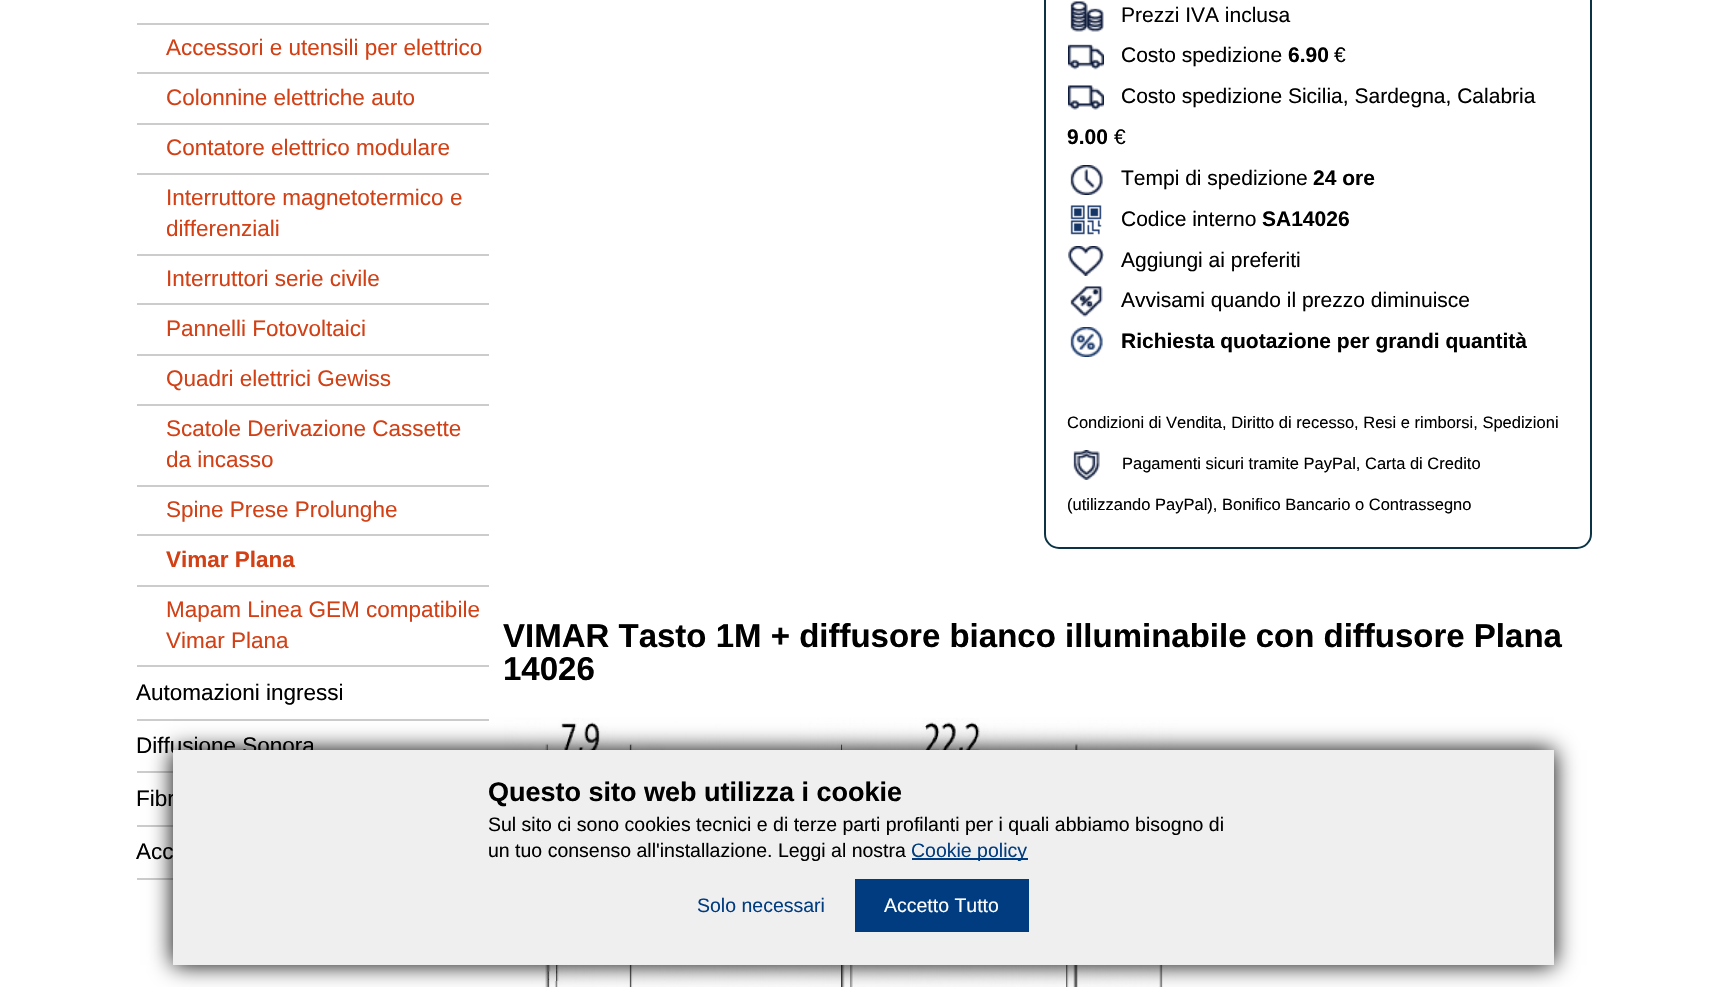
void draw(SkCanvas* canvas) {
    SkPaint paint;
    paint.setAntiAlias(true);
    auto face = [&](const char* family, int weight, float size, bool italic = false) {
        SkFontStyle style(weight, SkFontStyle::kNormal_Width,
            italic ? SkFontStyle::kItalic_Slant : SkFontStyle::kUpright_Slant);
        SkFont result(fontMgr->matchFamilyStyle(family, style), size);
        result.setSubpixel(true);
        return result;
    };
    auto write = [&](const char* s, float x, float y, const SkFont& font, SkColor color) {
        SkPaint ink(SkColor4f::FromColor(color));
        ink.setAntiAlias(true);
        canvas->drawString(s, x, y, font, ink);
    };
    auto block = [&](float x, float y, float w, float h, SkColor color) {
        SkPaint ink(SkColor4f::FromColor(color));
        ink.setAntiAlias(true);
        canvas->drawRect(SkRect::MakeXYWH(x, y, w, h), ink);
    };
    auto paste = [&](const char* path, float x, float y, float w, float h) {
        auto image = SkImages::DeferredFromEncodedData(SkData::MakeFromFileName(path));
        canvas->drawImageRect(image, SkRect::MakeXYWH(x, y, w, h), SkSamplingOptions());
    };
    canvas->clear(SK_ColorWHITE);
    block(137, 23, 352, 2, SkColorSetRGB(204, 204, 204));
    block(137, 72, 352, 2, SkColorSetRGB(204, 204, 204));
    auto kFont1 = face("Liberation Sans", 400, 22.5f);
    write("Accessori e utensili per elettrico", 166, 55, kFont1, SkColorSetRGB(210, 64, 21));
    block(137, 123, 352, 2, SkColorSetRGB(204, 204, 204));
    write("Colonnine elettriche auto", 166, 105, kFont1, SkColorSetRGB(210, 64, 21));
    block(137, 173, 352, 2, SkColorSetRGB(204, 204, 204));
    write("Contatore elettrico modulare", 166, 155, kFont1, SkColorSetRGB(210, 64, 21));
    block(137, 254, 352, 2, SkColorSetRGB(204, 204, 204));
    write("Interruttore magnetotermico e", 166, 205, kFont1, SkColorSetRGB(210, 64, 21));
    write("differenziali", 166, 236, kFont1, SkColorSetRGB(210, 64, 21));
    block(137, 303, 352, 2, SkColorSetRGB(204, 204, 204));
    write("Interruttori serie civile", 166, 286, kFont1, SkColorSetRGB(210, 64, 21));
    block(137, 354, 352, 2, SkColorSetRGB(204, 204, 204));
    write("Pannelli Fotovoltaici", 166, 336, kFont1, SkColorSetRGB(210, 64, 21));
    block(137, 404, 352, 2, SkColorSetRGB(204, 204, 204));
    write("Quadri elettrici Gewiss", 166, 386, kFont1, SkColorSetRGB(210, 64, 21));
    block(137, 485, 352, 2, SkColorSetRGB(204, 204, 204));
    write("Scatole Derivazione Cassette", 166, 436, kFont1, SkColorSetRGB(210, 64, 21));
    write("da incasso", 166, 467, kFont1, SkColorSetRGB(210, 64, 21));
    block(137, 534, 352, 2, SkColorSetRGB(204, 204, 204));
    write("Spine Prese Prolunghe", 166, 517, kFont1, SkColorSetRGB(210, 64, 21));
    block(137, 585, 352, 2, SkColorSetRGB(204, 204, 204));
    auto kFont2 = face("Liberation Sans", 700, 22.5f);
    write("Vimar Plana", 166, 567, kFont2, SkColorSetRGB(210, 64, 21));
    block(137, 665, 352, 2, SkColorSetRGB(204, 204, 204));
    write("Mapam Linea GEM compatibile", 166, 617, kFont1, SkColorSetRGB(210, 64, 21));
    write("Vimar Plana", 166, 648, kFont1, SkColorSetRGB(210, 64, 21));
    block(137, 719, 352, 2, SkColorSetRGB(204, 204, 204));
    write("Automazioni ingressi", 136, 700, kFont1, SK_ColorBLACK);
    block(137, 771, 36, 2, SkColorSetRGB(204, 204, 204));
    write("Diffusione Sonora", 136, 753, kFont1, SK_ColorBLACK);
    block(137, 825, 36, 2, SkColorSetRGB(204, 204, 204));
    write("Fibr", 136, 806, kFont1, SK_ColorBLACK);
    block(137, 878, 36, 2, SkColorSetRGB(204, 204, 204));
    write("Acc", 136, 859, kFont1, SK_ColorBLACK);
    paint.setStyle(SkPaint::kStroke_Style);
    paint.setStrokeWidth(2);
    paint.setColor(SkColorSetRGB(10, 52, 70));
    canvas->drawRoundRect(SkRect::MakeXYWH(1045, -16, 546, 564), 14, 14, paint);
    paste("pic1.png", 1070, 1, 34, 31);
    auto kFont3 = face("Liberation Sans", 400, 21);
    write("Prezzi IVA inclusa", 1121, 22, kFont3, SK_ColorBLACK);
    paste("pic2.png", 1068, 44, 36, 26);
    write("Costo spedizione", 1121, 62, kFont3, SK_ColorBLACK);
    auto kFont4 = face("Liberation Sans", 700, 21);
    write("6.90", 1288, 62, kFont4, SK_ColorBLACK);
    write("€", 1334, 62, kFont3, SK_ColorBLACK);
    paste("pic3.png", 1068, 85, 36, 25);
    write("Costo spedizione Sicilia, Sardegna, Calabria", 1121, 103, kFont3, SK_ColorBLACK);
    write("9.00", 1067, 144, kFont4, SK_ColorBLACK);
    write("€", 1114, 144, kFont3, SK_ColorBLACK);
    paste("pic4.png", 1070, 165, 33, 30);
    write("Tempi di spedizione", 1121, 185, kFont3, SK_ColorBLACK);
    write("24 ore", 1313, 185, kFont4, SK_ColorBLACK);
    paste("pic5.png", 1070, 205, 32, 30);
    write("Codice interno", 1121, 226, kFont3, SK_ColorBLACK);
    write("SA14026", 1262, 226, kFont4, SK_ColorBLACK);
    paste("pic6.png", 1068, 246, 36, 30);
    write("Aggiungi ai preferiti", 1121, 267, kFont3, SK_ColorBLACK);
    paste("pic7.png", 1070, 286, 33, 31);
    write("Avvisami quando il prezzo diminuisce", 1121, 307, kFont3, SK_ColorBLACK);
    paste("pic8.png", 1070, 327, 33, 30);
    write("Richiesta quotazione per grandi quantità", 1121, 348, kFont4, SK_ColorBLACK);
    auto kFont5 = face("Liberation Sans", 400, 16.5f);
    write("Condizioni di Vendita, Diritto di recesso, Resi e rimborsi, Spedizioni", 1067, 428, kFont5, SK_ColorBLACK);
    paste("pic9.png", 1073, 450, 27, 30);
    write("Pagamenti sicuri tramite PayPal, Carta di Credito", 1122, 469, kFont5, SK_ColorBLACK);
    write("(utilizzando PayPal), Bonifico Bancario o Contrassegno", 1067, 510, kFont5, SK_ColorBLACK);
    auto kFont6 = face("Liberation Sans", 700, 33);
    write("VIMAR Tasto 1M + diffusore bianco illuminabile con diffusore Plana", 503, 647, kFont6, SK_ColorBLACK);
    write("14026", 503, 680, kFont6, SK_ColorBLACK);
    paste("pic10.png", 504, 718, 674, 269);
    paint.setStyle(SkPaint::kFill_Style);
    paint.setColor(SK_ColorBLACK);
    paint.setMaskFilter(SkMaskFilter::MakeBlur(kNormal_SkBlurStyle, 11));
    canvas->drawRect(SkRect::MakeXYWH(173, 750, 1381, 215), paint);
    paint.setMaskFilter(nullptr);
    block(173, 750, 1381, 215, SkColorSetRGB(239, 239, 239));
    auto kFont7 = face("Liberation Sans", 700, 27);
    write("Questo sito web utilizza i cookie", 488, 801, kFont7, SK_ColorBLACK);
    auto kFont8 = face("Liberation Sans", 400, 19.5f);
    write("Sul sito ci sono cookies tecnici e di terze parti profilanti per i quali abbiamo bisogno di", 488, 831, kFont8, SK_ColorBLACK);
    write("un tuo consenso all'installazione. Leggi al nostra", 488, 857, kFont8, SK_ColorBLACK);
    block(912, 858, 116, 2, SkColorSetRGB(0, 60, 127));
    write("Cookie policy", 911, 857, kFont8, SkColorSetRGB(0, 60, 127));
    write("Solo necessari", 697, 912, kFont8, SkColorSetRGB(0, 60, 127));
    block(855, 879, 174, 53, SkColorSetRGB(0, 60, 127));
    write("Accetto Tutto", 884, 912, kFont8, SK_ColorWHITE);
}
